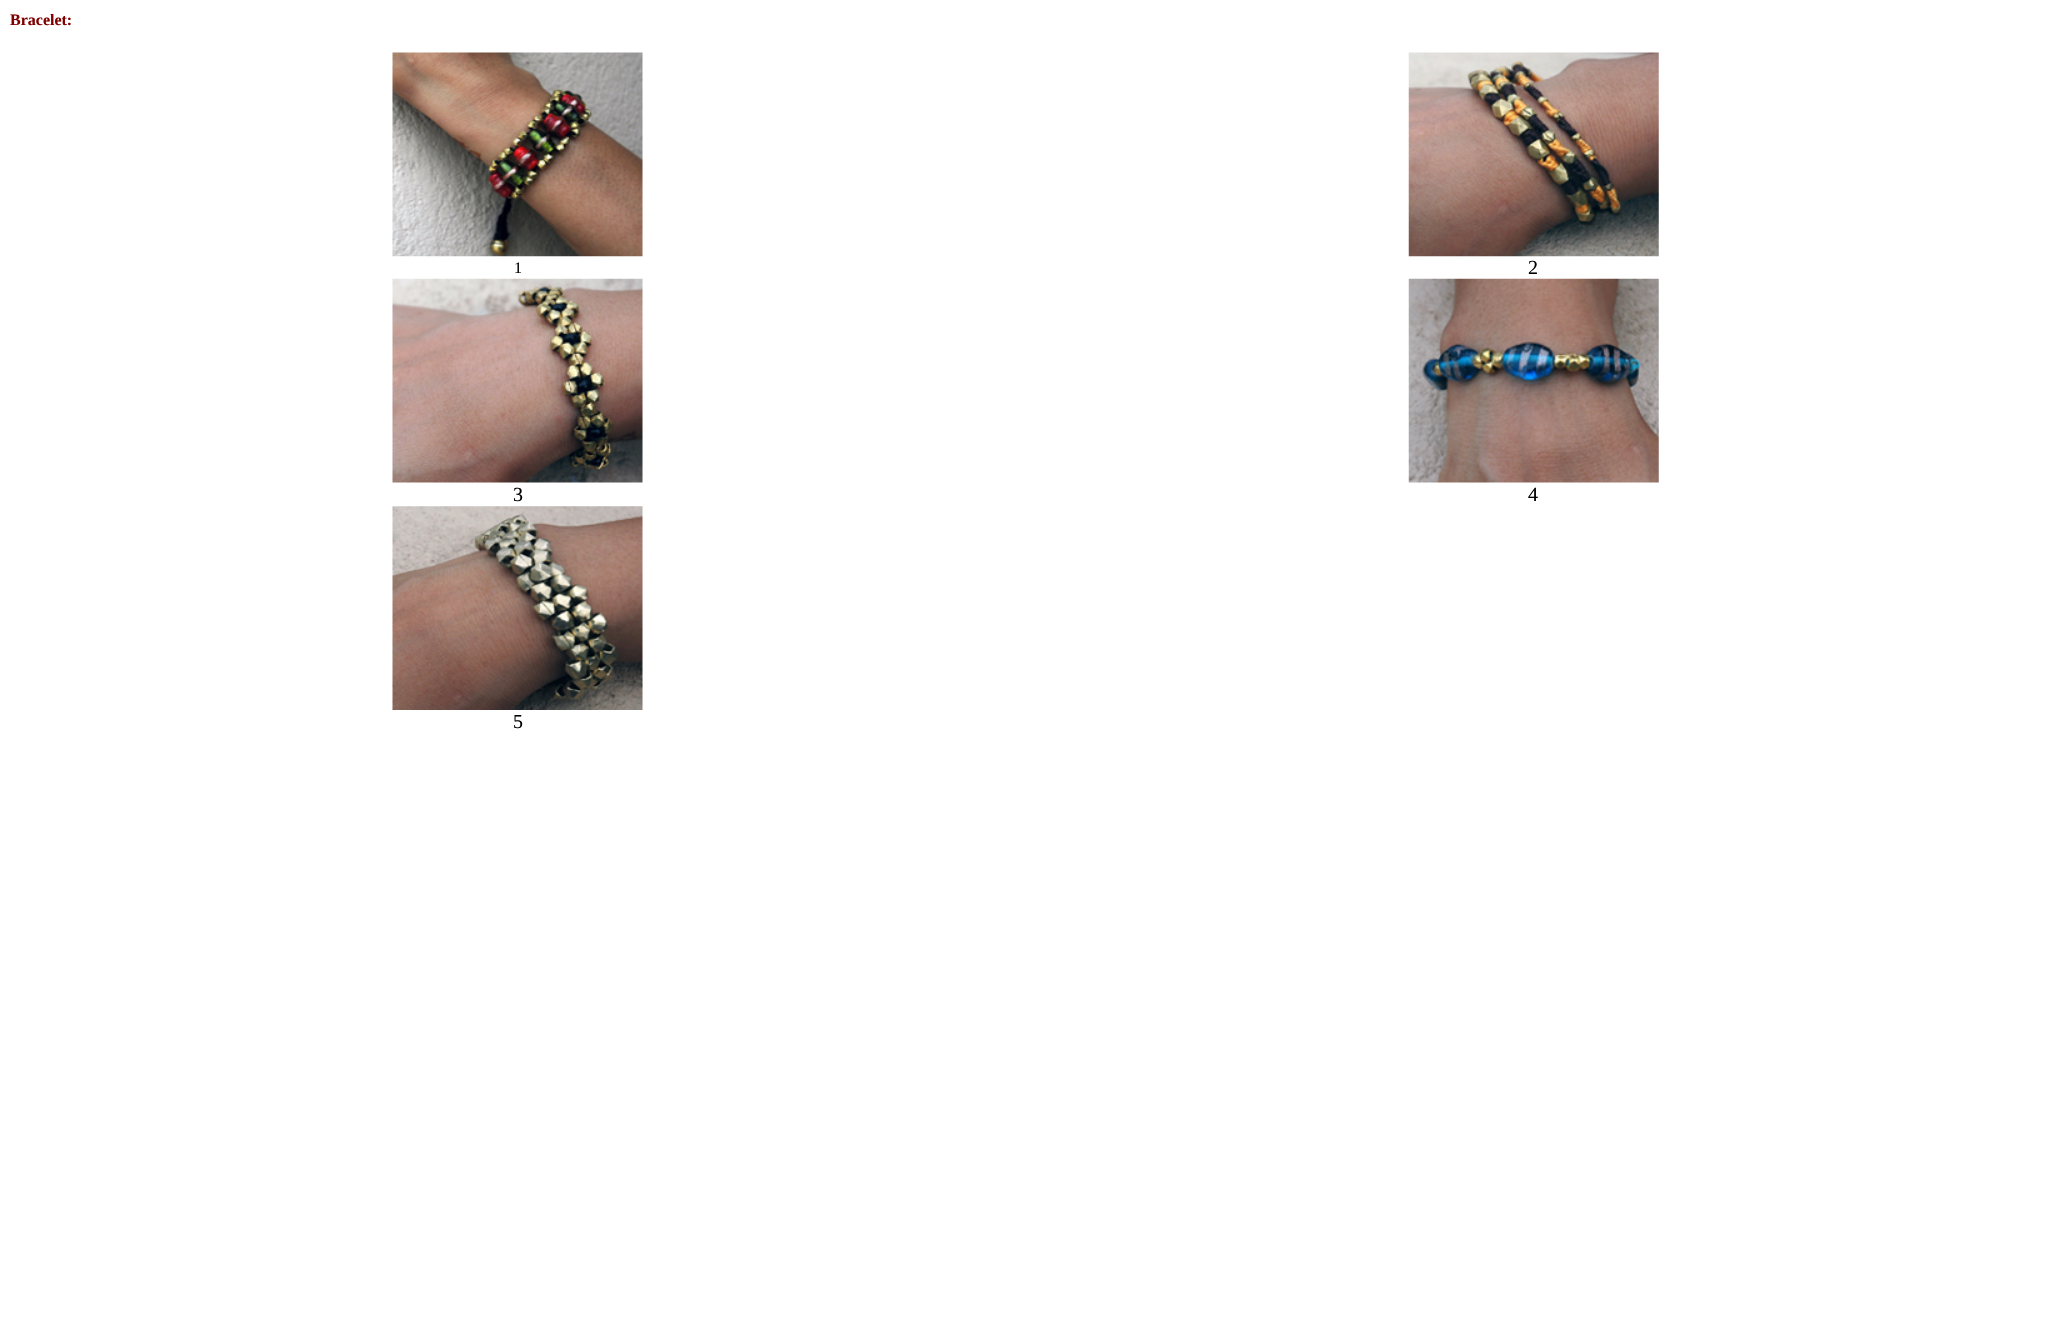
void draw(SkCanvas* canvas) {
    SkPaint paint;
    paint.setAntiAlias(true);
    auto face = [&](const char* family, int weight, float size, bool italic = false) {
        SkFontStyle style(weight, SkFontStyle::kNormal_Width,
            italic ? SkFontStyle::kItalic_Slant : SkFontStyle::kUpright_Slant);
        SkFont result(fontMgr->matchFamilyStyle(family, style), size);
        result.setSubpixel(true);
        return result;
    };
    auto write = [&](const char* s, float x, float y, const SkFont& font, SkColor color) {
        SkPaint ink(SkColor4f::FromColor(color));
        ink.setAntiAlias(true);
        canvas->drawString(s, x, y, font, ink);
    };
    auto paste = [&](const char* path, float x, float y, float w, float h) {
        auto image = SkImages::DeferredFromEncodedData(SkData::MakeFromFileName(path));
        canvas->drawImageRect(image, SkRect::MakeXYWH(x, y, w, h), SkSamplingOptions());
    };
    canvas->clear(SK_ColorWHITE);
    auto kFont1 = face("Liberation Serif", 700, 16);
    write("Bracelet:", 10, 25, kFont1, SkColorSetRGB(128, 0, 0));
    paste("pic1.png", 392, 52, 251, 205);
    paste("pic2.png", 1408, 52, 251, 205);
    auto kFont2 = face("Liberation Serif", 400, 16);
    write("1", 514, 273, kFont2, SK_ColorBLACK);
    auto kFont3 = face("Liberation Serif", 400, 20);
    write("2", 1528, 274, kFont3, SK_ColorBLACK);
    paste("pic3.png", 392, 278, 251, 205);
    paste("pic4.png", 1408, 278, 251, 205);
    write("3", 513, 501, kFont3, SK_ColorBLACK);
    write("4", 1528, 501, kFont3, SK_ColorBLACK);
    paste("pic5.png", 392, 506, 251, 204);
    write("5", 513, 728, kFont3, SK_ColorBLACK);
}
